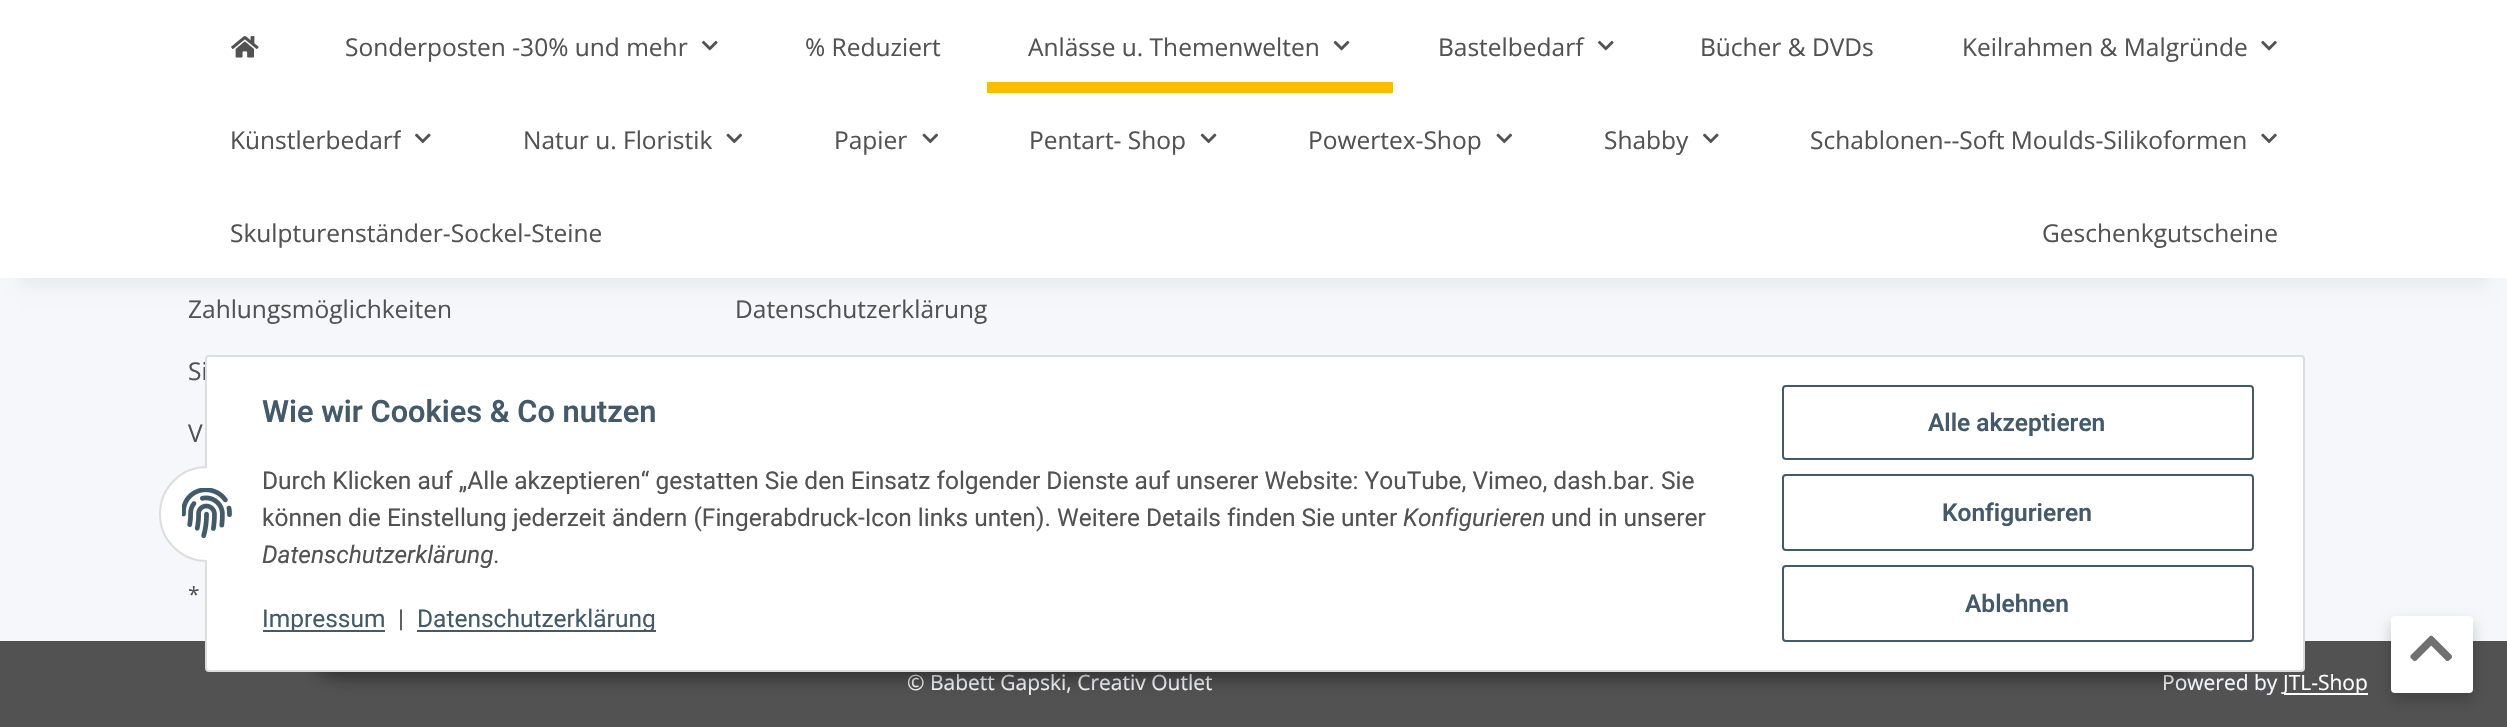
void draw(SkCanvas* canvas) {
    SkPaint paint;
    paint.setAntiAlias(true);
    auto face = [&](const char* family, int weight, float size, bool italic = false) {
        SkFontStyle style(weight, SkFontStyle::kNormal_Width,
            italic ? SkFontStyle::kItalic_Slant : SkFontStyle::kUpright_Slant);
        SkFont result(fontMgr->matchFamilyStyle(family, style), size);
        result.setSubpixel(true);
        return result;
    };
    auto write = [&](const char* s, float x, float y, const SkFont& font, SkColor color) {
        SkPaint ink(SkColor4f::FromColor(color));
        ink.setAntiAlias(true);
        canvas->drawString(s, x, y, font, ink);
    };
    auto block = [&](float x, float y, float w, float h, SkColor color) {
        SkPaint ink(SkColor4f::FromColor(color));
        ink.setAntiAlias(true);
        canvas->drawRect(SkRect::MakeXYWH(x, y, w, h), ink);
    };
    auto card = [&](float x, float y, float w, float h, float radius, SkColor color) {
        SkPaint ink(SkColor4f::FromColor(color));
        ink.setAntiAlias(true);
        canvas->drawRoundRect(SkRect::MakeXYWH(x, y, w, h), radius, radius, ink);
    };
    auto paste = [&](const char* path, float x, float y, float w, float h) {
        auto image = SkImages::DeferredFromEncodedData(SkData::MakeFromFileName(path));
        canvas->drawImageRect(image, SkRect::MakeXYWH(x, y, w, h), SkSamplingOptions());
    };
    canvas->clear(SkColorSetRGB(245, 247, 250));
    paint.setColor(SkColorSetARGB(15, 0, 0, 0));
    paint.setMaskFilter(SkMaskFilter::MakeBlur(kNormal_SkBlurStyle, 8));
    canvas->drawRect(SkRect::MakeXYWH(21, 49, 2466, 236), paint);
    paint.setMaskFilter(nullptr);
    block(0, 0, 2507, 278, SK_ColorWHITE);
    paste("pic1.png", 231, 36, 28, 22);
    auto kFont1 = face("Open Sans", 400, 24.5f);
    write("Sonderposten -30% und mehr", 345, 56, kFont1, SkColorSetRGB(82, 82, 82));
    paste("pic2.png", 702, 40, 16, 11);
    write("% Reduziert", 805, 56, kFont1, SkColorSetRGB(82, 82, 82));
    write("Anlässe u. Themenwelten", 1028, 56, kFont1, SkColorSetRGB(82, 82, 82));
    paste("pic3.png", 1333, 40, 17, 11);
    block(987, 82, 406, 11, SkColorSetRGB(248, 191, 0));
    write("Bastelbedarf", 1438, 56, kFont1, SkColorSetRGB(82, 82, 82));
    paste("pic2.png", 1598, 40, 16, 11);
    write("Bücher & DVDs", 1700, 56, kFont1, SkColorSetRGB(82, 82, 82));
    write("Keilrahmen & Malgründe", 1962, 56, kFont1, SkColorSetRGB(82, 82, 82));
    paste("pic4.png", 2261, 40, 16, 11);
    canvas->save();
    canvas->clipRect(SkRect::MakeXYWH(231, 121, 170, 37));
    write("Künstlerbedarf", 230, 149, kFont1, SkColorSetRGB(82, 82, 82));
    canvas->restore();
    paste("pic5.png", 415, 133, 16, 11);
    write("Natur u. Floristik", 523, 149, kFont1, SkColorSetRGB(82, 82, 82));
    paste("pic6.png", 726, 133, 17, 11);
    write("Papier", 834, 149, kFont1, SkColorSetRGB(82, 82, 82));
    paste("pic6.png", 922, 133, 17, 11);
    write("Pentart- Shop", 1029, 149, kFont1, SkColorSetRGB(82, 82, 82));
    paste("pic7.png", 1200, 133, 17, 11);
    write("Powertex-Shop", 1308, 149, kFont1, SkColorSetRGB(82, 82, 82));
    paste("pic6.png", 1496, 133, 17, 11);
    write("Shabby", 1604, 149, kFont1, SkColorSetRGB(82, 82, 82));
    paste("pic5.png", 1703, 133, 16, 11);
    write("Schablonen--Soft Moulds-Silikoformen", 1810, 149, kFont1, SkColorSetRGB(82, 82, 82));
    paste("pic8.png", 2261, 133, 16, 11);
    write("Skulpturenständer-Sockel-Steine", 230, 242, kFont1, SkColorSetRGB(82, 82, 82));
    write("Geschenkgutscheine", 2042, 242, kFont1, SkColorSetRGB(82, 82, 82));
    write("Zahlungsmöglichkeiten", 188, 318, kFont1, SkColorSetRGB(82, 82, 82));
    write("Si", 188, 380, kFont1, SkColorSetRGB(82, 82, 82));
    write("V", 188, 442, kFont1, SkColorSetRGB(82, 82, 82));
    write("Datenschutzerklärung", 735, 318, kFont1, SkColorSetRGB(82, 82, 82));
    auto kFont2 = face("Open Sans", 400, 21);
    write("*", 188, 602, kFont2, SkColorSetRGB(82, 82, 82));
    block(0, 641, 2507, 86, SkColorSetRGB(82, 82, 82));
    write("© Babett Gapski, Creativ Outlet", 907, 690, kFont2, SkColorSetRGB(245, 247, 250));
    write("Powered by", 2162, 690, kFont2, SkColorSetRGB(245, 247, 250));
    block(2284, 693, 84, 2, SK_ColorWHITE);
    write("JTL-Shop", 2283, 690, kFont2, SK_ColorWHITE);
    paint.setColor(SkColorSetARGB(51, 0, 0, 0));
    paint.setMaskFilter(SkMaskFilter::MakeBlur(kNormal_SkBlurStyle, 7));
    canvas->drawRoundRect(SkRect::MakeXYWH(2391, 623, 82, 77), 4, 4, paint);
    paint.setMaskFilter(nullptr);
    card(2391, 616, 82, 77, 4, SK_ColorWHITE);
    paste("pic9.png", 2410, 635, 42, 26);
    paint.setColor(SkColorSetARGB(115, 0, 0, 0));
    paint.setMaskFilter(SkMaskFilter::MakeBlur(kNormal_SkBlurStyle, 9));
    canvas->drawRoundRect(SkRect::MakeXYWH(310, 621, 1888, 56), 28, 28, paint);
    paint.setMaskFilter(nullptr);
    paint.setColor(SK_ColorWHITE);
    canvas->drawRoundRect(SkRect::MakeXYWH(206, 356, 2098, 315), 3, 3, paint);
    paint.setStyle(SkPaint::kStroke_Style);
    paint.setStrokeWidth(2);
    paint.setColor(SkColorSetRGB(221, 221, 221));
    canvas->drawRoundRect(SkRect::MakeXYWH(206, 356, 2098, 315), 3, 3, paint);
    paint.setStyle(SkPaint::kFill_Style);
    paint.setColor(SK_ColorWHITE);
    canvas->drawRoundRect(SkRect::MakeXYWH(160, 467, 95, 94), 47, 47, paint);
    paint.setStyle(SkPaint::kStroke_Style);
    paint.setColor(SkColorSetRGB(221, 221, 221));
    canvas->drawRoundRect(SkRect::MakeXYWH(160, 467, 95, 94), 47, 47, paint);
    block(207, 466, 49, 96, SK_ColorWHITE);
    paste("pic10.png", 182, 488, 50, 51);
    auto kFont3 = face("Roboto", 600, 30.75f);
    write("Wie wir Cookies & Co nutzen", 262, 422, kFont3, SkColorSetRGB(67, 90, 107));
    auto kFont4 = face("Roboto", 400, 24.5f);
    write("Durch Klicken auf „Alle akzeptieren“ gestatten Sie den Einsatz folgender Dienste auf unserer Website: YouTube, Vimeo, dash.bar. Sie", 262, 489, kFont4, SkColorSetRGB(82, 82, 82));
    write("können die Einstellung jederzeit ändern (Fingerabdruck-Icon links unten). Weitere Details finden Sie unter", 262, 526, kFont4, SkColorSetRGB(82, 82, 82));
    auto kFont5 = face("Roboto", 400, 24.5f, true);
    write("Konfigurieren", 1403, 526, kFont5, SkColorSetRGB(82, 82, 82));
    write("und in unserer", 1551, 526, kFont4, SkColorSetRGB(82, 82, 82));
    write("Datenschutzerklärung", 262, 563, kFont5, SkColorSetRGB(82, 82, 82));
    write(".", 493, 563, kFont4, SkColorSetRGB(82, 82, 82));
    block(263, 630, 122, 2, SkColorSetRGB(67, 90, 107));
    write("Impressum", 262, 627, kFont4, SkColorSetRGB(67, 90, 107));
    write("|", 398, 627, kFont4, SkColorSetRGB(82, 82, 82));
    block(417, 630, 239, 2, SkColorSetRGB(67, 90, 107));
    write("Datenschutzerklärung", 417, 627, kFont4, SkColorSetRGB(67, 90, 107));
    paint.setColor(SkColorSetRGB(67, 90, 107));
    canvas->drawRoundRect(SkRect::MakeXYWH(1783, 386, 470, 73), 3, 3, paint);
    auto kFont6 = face("Roboto", 600, 24.5f);
    write("Alle akzeptieren", 1928, 431, kFont6, SkColorSetRGB(67, 90, 107));
    canvas->drawRoundRect(SkRect::MakeXYWH(1783, 475, 470, 75), 3, 3, paint);
    write("Konfigurieren", 1942, 521, kFont6, SkColorSetRGB(67, 90, 107));
    canvas->drawRoundRect(SkRect::MakeXYWH(1783, 566, 470, 75), 3, 3, paint);
    write("Ablehnen", 1965, 612, kFont6, SkColorSetRGB(67, 90, 107));
}
